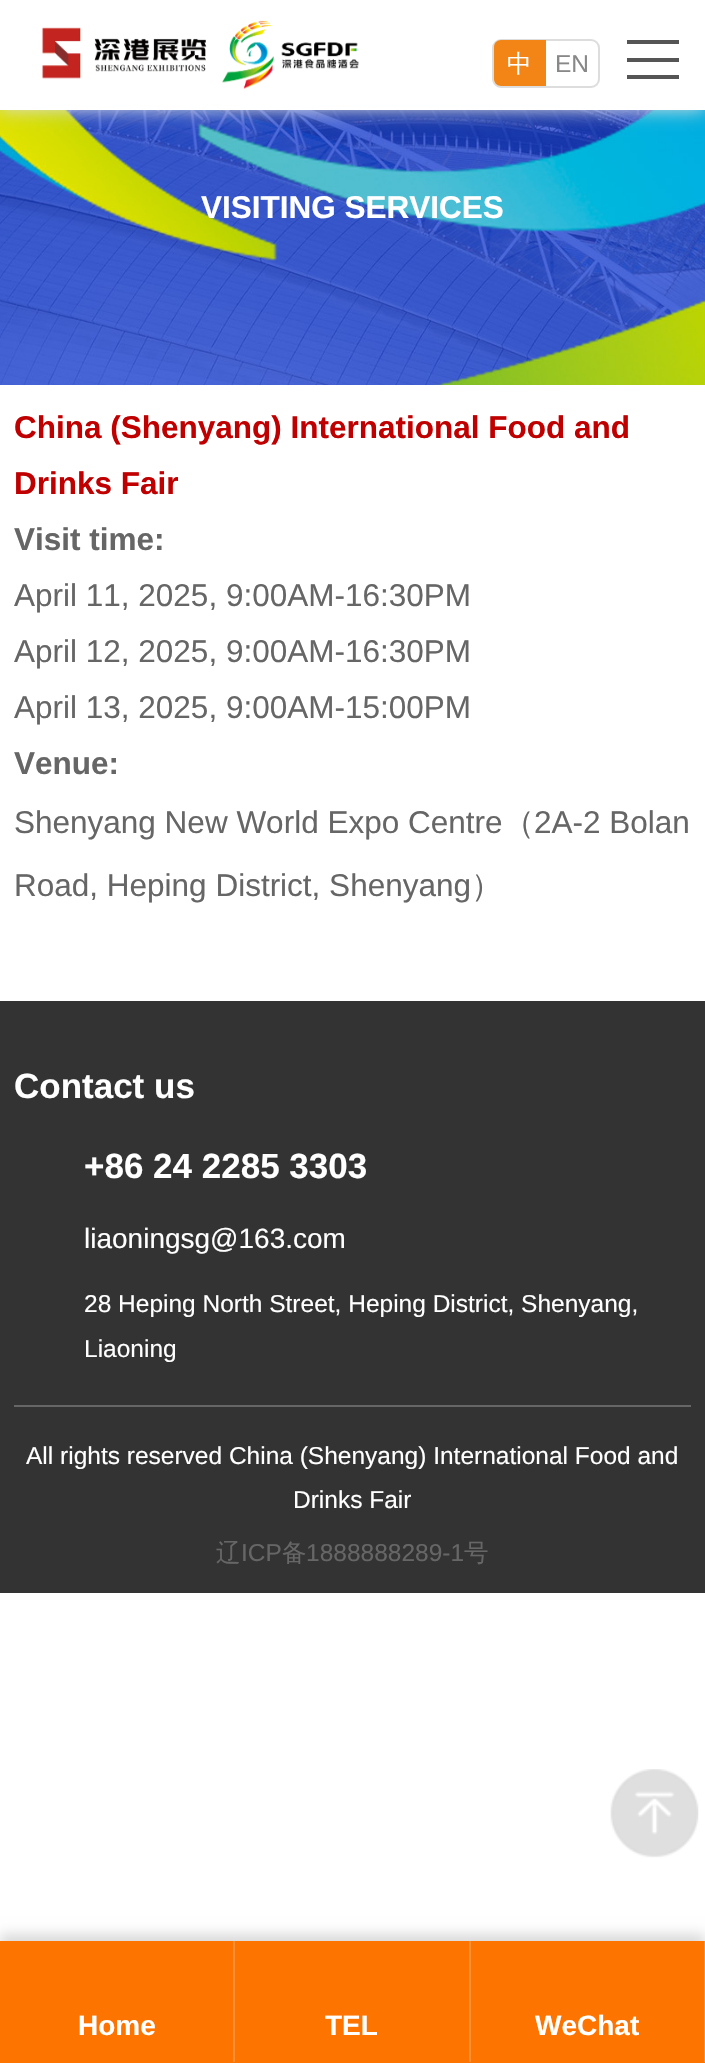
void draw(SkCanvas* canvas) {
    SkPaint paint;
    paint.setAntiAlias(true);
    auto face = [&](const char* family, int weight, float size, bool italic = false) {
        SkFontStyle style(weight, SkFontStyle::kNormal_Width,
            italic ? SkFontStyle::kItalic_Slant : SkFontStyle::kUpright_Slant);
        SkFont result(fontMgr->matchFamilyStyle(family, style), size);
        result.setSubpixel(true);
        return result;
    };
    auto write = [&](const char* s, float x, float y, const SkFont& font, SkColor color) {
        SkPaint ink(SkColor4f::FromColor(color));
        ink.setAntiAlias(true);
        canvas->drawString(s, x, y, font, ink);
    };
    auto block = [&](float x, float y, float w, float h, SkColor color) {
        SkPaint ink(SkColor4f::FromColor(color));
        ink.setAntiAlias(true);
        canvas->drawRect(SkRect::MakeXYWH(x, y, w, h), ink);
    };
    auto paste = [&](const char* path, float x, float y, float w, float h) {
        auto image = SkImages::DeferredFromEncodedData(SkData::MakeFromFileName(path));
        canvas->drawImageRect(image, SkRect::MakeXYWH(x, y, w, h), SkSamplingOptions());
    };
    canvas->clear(SK_ColorWHITE);
    paste("pic2.png", 0, 110, 705, 275);
    paint.setColor(SkColorSetRGB(221, 221, 221));
    paint.setMaskFilter(SkMaskFilter::MakeBlur(kNormal_SkBlurStyle, 9));
    canvas->drawRect(SkRect::MakeXYWH(0, 0, 705, 110), paint);
    paint.setMaskFilter(nullptr);
    block(0, 0, 705, 110, SK_ColorWHITE);
    paste("pic1.png", 42, 20, 317, 69);
    paint.setStyle(SkPaint::kStroke_Style);
    paint.setStrokeWidth(2);
    canvas->drawRoundRect(SkRect::MakeXYWH(493, 40, 106, 47), 8, 8, paint);
    paint.setStyle(SkPaint::kFill_Style);
    paint.setColor(SkColorSetRGB(242, 133, 21));
    canvas->drawPath(SkPathBuilder().moveTo(501, 40).lineTo(546, 40).lineTo(546, 86).lineTo(501, 86).cubicTo(497, 86, 494, 83, 494, 79).lineTo(494, 47).cubicTo(494, 43, 497, 40, 501, 40).close().detach(), paint);
    auto kFont1 = face("WenQuanYi Zen Hei", 500, 24.5f);
    write("中", 507, 72, kFont1, SK_ColorWHITE);
    auto kFont2 = face("Liberation Sans", 400, 24.5f);
    write("EN", 555, 72, kFont2, SkColorSetRGB(136, 136, 136));
    block(627, 40, 52, 4, SkColorSetRGB(85, 85, 85));
    block(627, 58, 52, 4, SkColorSetRGB(85, 85, 85));
    block(627, 75, 52, 4, SkColorSetRGB(85, 85, 85));
    auto kFont3 = face("Liberation Sans", 700, 31.5f);
    write("VISITING SERVICES", 201, 218, kFont3, SK_ColorWHITE);
    write("China (Shenyang) International Food and", 14, 438, kFont3, SkColorSetRGB(192, 0, 0));
    write("Drinks Fair", 14, 494, kFont3, SkColorSetRGB(192, 0, 0));
    write("Visit time:", 14, 550, kFont3, SkColorSetRGB(102, 102, 102));
    auto kFont4 = face("Liberation Sans", 400, 31.5f);
    write("April 11, 2025, 9:00AM-16:30PM", 14, 606, kFont4, SkColorSetRGB(102, 102, 102));
    write("April 12, 2025, 9:00AM-16:30PM", 14, 662, kFont4, SkColorSetRGB(102, 102, 102));
    write("April 13, 2025, 9:00AM-15:00PM", 14, 718, kFont4, SkColorSetRGB(102, 102, 102));
    write("Venue:", 14, 774, kFont3, SkColorSetRGB(102, 102, 102));
    write("Shenyang New World Expo Centre", 14, 833, kFont4, SkColorSetRGB(102, 102, 102));
    auto kFont5 = face("WenQuanYi Zen Hei", 500, 31.5f);
    write("（", 503, 833, kFont5, SkColorSetRGB(102, 102, 102));
    write("2A-2 Bolan", 534, 833, kFont4, SkColorSetRGB(102, 102, 102));
    write("Road, Heping District, Shenyang", 14, 896, kFont4, SkColorSetRGB(102, 102, 102));
    write("）", 471, 896, kFont5, SkColorSetRGB(102, 102, 102));
    block(0, 1001, 705, 592, SkColorSetRGB(51, 51, 51));
    auto kFont6 = face("Liberation Sans", 700, 35);
    write("Contact us", 14, 1098, kFont6, SK_ColorWHITE);
    write("+86 24 2285 3303", 84, 1178, kFont6, SK_ColorWHITE);
    auto kFont7 = face("Liberation Sans", 400, 28);
    write("liaoningsg@163.com", 84, 1248, kFont7, SK_ColorWHITE);
    write("28 Heping North Street, Heping District, Shenyang,", 84, 1312, kFont2, SK_ColorWHITE);
    write("Liaoning", 84, 1357, kFont2, SK_ColorWHITE);
    block(14, 1405, 677, 2, SkColorSetRGB(102, 102, 102));
    write("All rights reserved China (Shenyang) International Food and", 26, 1464, kFont2, SK_ColorWHITE);
    write("Drinks Fair", 293, 1508, kFont2, SK_ColorWHITE);
    write("辽", 216, 1561, kFont1, SkColorSetRGB(102, 102, 102));
    write("ICP", 241, 1561, kFont2, SkColorSetRGB(102, 102, 102));
    write("备", 282, 1561, kFont1, SkColorSetRGB(102, 102, 102));
    write("1888888289-1", 306, 1561, kFont2, SkColorSetRGB(102, 102, 102));
    write("号", 464, 1561, kFont1, SkColorSetRGB(102, 102, 102));
    paste("pic3.png", 610, 1769, 89, 89);
    paint.setColor(SkColorSetARGB(38, 0, 0, 0));
    paint.setMaskFilter(SkMaskFilter::MakeBlur(kNormal_SkBlurStyle, 6));
    canvas->drawRect(SkRect::MakeXYWH(0, 1934, 705, 122), paint);
    paint.setMaskFilter(nullptr);
    block(0, 1941, 705, 122, SkColorSetRGB(253, 116, 0));
    block(233, 1941, 2, 121, SkColorSetRGB(253, 144, 51));
    auto kFont8 = face("Liberation Sans", 700, 28);
    write("Home", 78, 2035, kFont8, SK_ColorWHITE);
    block(469, 1941, 2, 121, SkColorSetRGB(253, 144, 51));
    write("TEL", 325, 2035, kFont8, SK_ColorWHITE);
    block(704, 1941, 1, 121, SkColorSetRGB(253, 144, 51));
    write("WeChat", 535, 2035, kFont8, SK_ColorWHITE);
}
